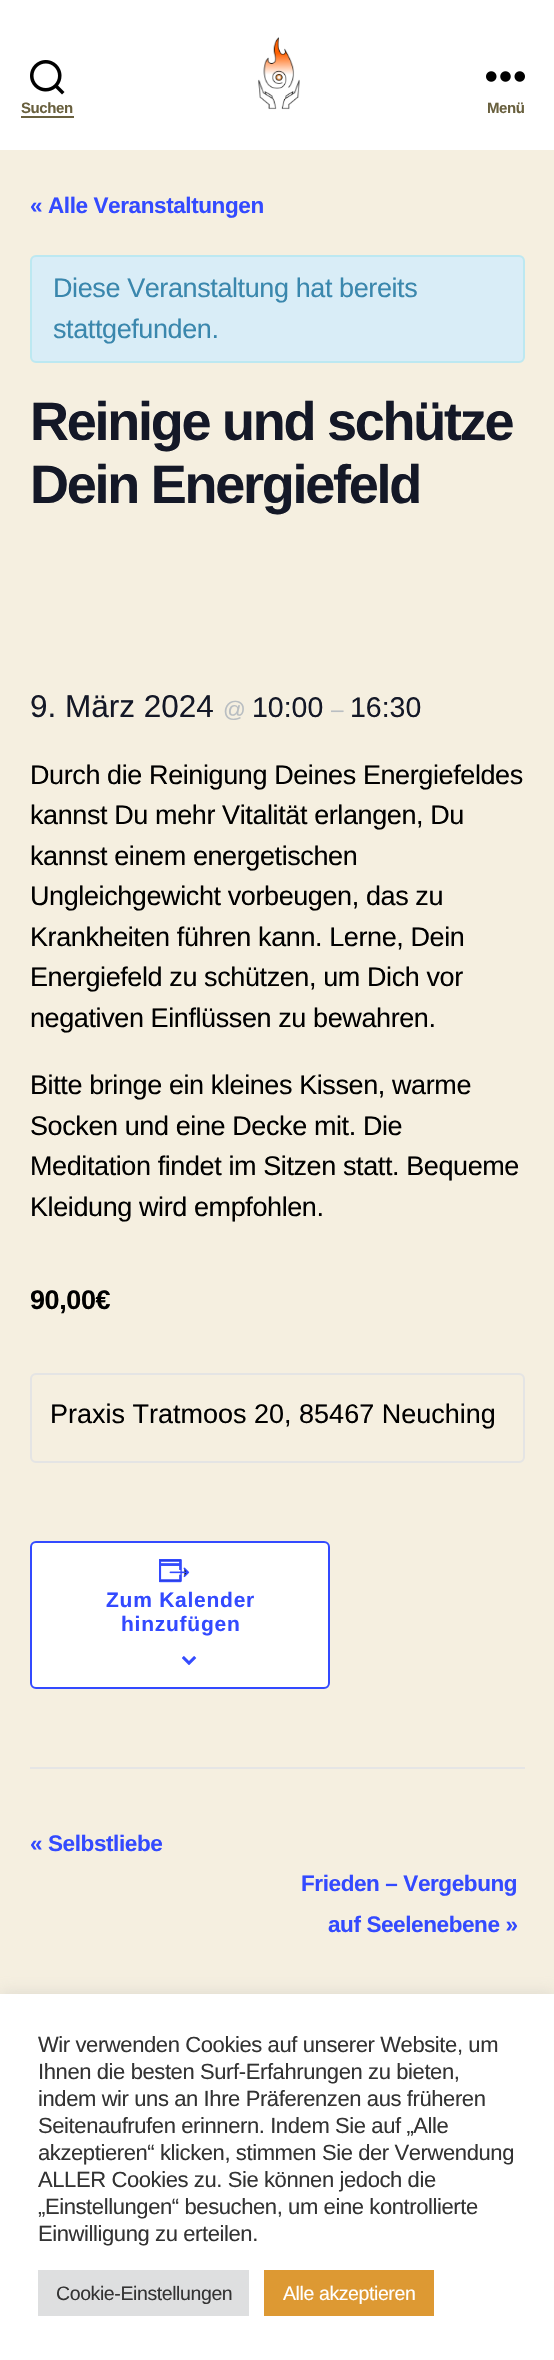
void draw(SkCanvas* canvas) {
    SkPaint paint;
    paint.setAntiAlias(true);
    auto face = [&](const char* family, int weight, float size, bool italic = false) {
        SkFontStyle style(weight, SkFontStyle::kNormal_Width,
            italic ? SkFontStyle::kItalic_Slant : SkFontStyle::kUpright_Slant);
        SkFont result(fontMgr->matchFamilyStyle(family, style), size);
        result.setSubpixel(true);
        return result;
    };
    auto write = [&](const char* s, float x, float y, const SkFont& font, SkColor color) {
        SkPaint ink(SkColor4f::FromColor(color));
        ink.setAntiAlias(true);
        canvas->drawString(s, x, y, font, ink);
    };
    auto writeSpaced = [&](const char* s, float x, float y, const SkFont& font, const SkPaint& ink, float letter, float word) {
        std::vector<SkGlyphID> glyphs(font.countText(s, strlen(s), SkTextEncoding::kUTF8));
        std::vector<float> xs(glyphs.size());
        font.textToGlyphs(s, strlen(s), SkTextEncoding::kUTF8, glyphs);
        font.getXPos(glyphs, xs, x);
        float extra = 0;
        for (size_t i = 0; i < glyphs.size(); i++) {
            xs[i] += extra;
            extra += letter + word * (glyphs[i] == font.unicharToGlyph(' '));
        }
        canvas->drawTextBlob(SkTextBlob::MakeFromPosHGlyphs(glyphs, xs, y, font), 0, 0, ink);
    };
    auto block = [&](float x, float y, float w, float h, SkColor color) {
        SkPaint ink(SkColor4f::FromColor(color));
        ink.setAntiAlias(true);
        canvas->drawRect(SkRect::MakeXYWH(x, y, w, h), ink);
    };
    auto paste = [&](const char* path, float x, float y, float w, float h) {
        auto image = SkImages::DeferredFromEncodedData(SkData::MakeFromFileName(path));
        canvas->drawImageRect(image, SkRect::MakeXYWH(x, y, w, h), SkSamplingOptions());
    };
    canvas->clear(SkColorSetRGB(245, 239, 224));
    block(0, 0, 554, 150, SK_ColorWHITE);
    paste("pic1.png", 30, 60, 35, 35);
    auto kFont1 = face("Liberation Sans", 700, 15);
    paint.setColor(SkColorSetRGB(105, 96, 62));
    writeSpaced("Suchen", 21, 113, kFont1, paint, -0.4f, 0);
    block(21, 116, 53, 2, SkColorSetRGB(105, 96, 62));
    paste("pic2.png", 258, 37, 42, 73);
    paste("pic3.png", 486, 71, 39, 11);
    writeSpaced("Menü", 487, 113, kFont1, paint, -0.4f, 0);
    auto kFont2 = face("Liberation Sans", 700, 22.5f);
    paint.setColor(SkColorSetRGB(51, 74, 255));
    writeSpaced("« Alle Veranstaltungen", 30, 213, kFont2, paint, -0.4f, 0);
    paint.setColor(SkColorSetRGB(217, 237, 247));
    canvas->drawRoundRect(SkRect::MakeXYWH(31, 256, 493, 106), 5, 5, paint);
    paint.setStyle(SkPaint::kStroke_Style);
    paint.setStrokeWidth(2);
    paint.setColor(SkColorSetRGB(188, 232, 241));
    canvas->drawRoundRect(SkRect::MakeXYWH(31, 256, 493, 106), 5, 5, paint);
    auto kFont3 = face("Liberation Sans", 400, 27);
    paint.setStyle(SkPaint::kFill_Style);
    paint.setColor(SkColorSetRGB(58, 135, 173));
    writeSpaced("Diese Veranstaltung hat bereits", 53, 297, kFont3, paint, -0.4f, 0);
    writeSpaced("stattgefunden.", 53, 338, kFont3, paint, -0.4f, 0);
    auto kFont4 = face("Liberation Sans", 700, 54);
    paint.setColor(SkColorSetRGB(20, 24, 39));
    writeSpaced("Reinige und schütze", 30, 440, kFont4, paint, -2.25f, 0);
    writeSpaced("Dein Energiefeld", 30, 503, kFont4, paint, -2.25f, 0);
    auto kFont5 = face("Liberation Sans", 400, 31.5f);
    write("9. März 2024", 30, 717, kFont5, SkColorSetRGB(20, 24, 39));
    auto kFont6 = face("Liberation Sans", 400, 22.5f);
    write("@", 223, 717, kFont6, SkColorSetRGB(185, 190, 194));
    auto kFont7 = face("Liberation Sans", 400, 28.5f);
    write("10:00", 252, 717, kFont7, SkColorSetRGB(20, 24, 39));
    write("–", 331, 717, kFont6, SkColorSetRGB(185, 190, 194));
    write("16:30", 350, 717, kFont7, SkColorSetRGB(20, 24, 39));
    paint.setColor(SK_ColorBLACK);
    writeSpaced("Durch die Reinigung Deines Energiefeldes", 30, 784, kFont3, paint, -0.4f, 0);
    writeSpaced("kannst Du mehr Vitalität erlangen, Du", 30, 824, kFont3, paint, -0.4f, 0);
    writeSpaced("kannst einem energetischen", 30, 865, kFont3, paint, -0.4f, 0);
    writeSpaced("Ungleichgewicht vorbeugen, das zu", 30, 905, kFont3, paint, -0.4f, 0);
    writeSpaced("Krankheiten führen kann. Lerne, Dein", 30, 946, kFont3, paint, -0.4f, 0);
    writeSpaced("Energiefeld zu schützen, um Dich vor", 30, 986, kFont3, paint, -0.4f, 0);
    writeSpaced("negativen Einflüssen zu bewahren.", 30, 1027, kFont3, paint, -0.4f, 0);
    writeSpaced("Bitte bringe ein kleines Kissen, warme", 30, 1094, kFont3, paint, -0.4f, 0);
    writeSpaced("Socken und eine Decke mit. Die", 30, 1135, kFont3, paint, -0.4f, 0);
    writeSpaced("Meditation findet im Sitzen statt. Bequeme", 30, 1175, kFont3, paint, -0.4f, 0);
    writeSpaced("Kleidung wird empfohlen.", 30, 1216, kFont3, paint, -0.4f, 0);
    auto kFont8 = face("Liberation Sans", 700, 27);
    writeSpaced("90,00€", 30, 1309, kFont8, paint, -0.4f, 0);
    paint.setStyle(SkPaint::kStroke_Style);
    paint.setColor(SkColorSetRGB(228, 228, 228));
    canvas->drawRoundRect(SkRect::MakeXYWH(31, 1374, 493, 88), 5, 5, paint);
    write("Praxis Tratmoos 20, 85467 Neuching", 50, 1423, kFont3, SK_ColorBLACK);
    paint.setStyle(SkPaint::kFill_Style);
    paint.setColor(SK_ColorWHITE);
    canvas->drawRoundRect(SkRect::MakeXYWH(31, 1542, 298, 146), 5, 5, paint);
    paint.setStyle(SkPaint::kStroke_Style);
    paint.setColor(SkColorSetRGB(51, 74, 255));
    canvas->drawRoundRect(SkRect::MakeXYWH(31, 1542, 298, 146), 5, 5, paint);
    paste("pic4.png", 159, 1559, 31, 24);
    auto kFont9 = face("Liberation Sans", 700, 21);
    paint.setStyle(SkPaint::kFill_Style);
    writeSpaced("Zum Kalender", 106, 1607, kFont9, paint, 0.75f, 0);
    writeSpaced("hinzufügen", 121, 1631, kFont9, paint, 0.75f, 0);
    paste("pic5.png", 182, 1656, 15, 9);
    block(30, 1767, 495, 2, SkColorSetRGB(229, 229, 229));
    writeSpaced("« Selbstliebe", 30, 1851, kFont2, paint, -0.4f, 0);
    writeSpaced("Frieden – Vergebung", 301, 1891, kFont2, paint, -0.4f, 0);
    writeSpaced("auf Seelenebene »", 328, 1932, kFont2, paint, -0.4f, 0);
    paint.setColor(SkColorSetARGB(77, 172, 171, 171));
    paint.setMaskFilter(SkMaskFilter::MakeBlur(kNormal_SkBlurStyle, 7.5f));
    canvas->drawRect(SkRect::MakeXYWH(0, 1992, 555, 368), paint);
    paint.setMaskFilter(nullptr);
    block(0, 1994, 554, 366, SK_ColorWHITE);
    auto kFont10 = face("Liberation Sans", 400, 22);
    paint.setColor(SkColorSetRGB(51, 51, 51));
    writeSpaced("Wir verwenden Cookies auf unserer Website, um", 38, 2052, kFont10, paint, -0.4f, 0);
    writeSpaced("Ihnen die besten Surf-Erfahrungen zu bieten,", 38, 2079, kFont10, paint, -0.4f, 0);
    writeSpaced("indem wir uns an Ihre Präferenzen aus früheren", 38, 2106, kFont10, paint, -0.4f, 0);
    writeSpaced("Seitenaufrufen erinnern. Indem Sie auf „Alle", 38, 2133, kFont10, paint, -0.4f, 0);
    writeSpaced("akzeptieren“ klicken, stimmen Sie der Verwendung", 38, 2160, kFont10, paint, -0.4f, 0);
    writeSpaced("ALLER Cookies zu. Sie können jedoch die", 38, 2187, kFont10, paint, -0.4f, 0);
    writeSpaced("„Einstellungen“ besuchen, um eine kontrollierte", 38, 2214, kFont10, paint, -0.4f, 0);
    writeSpaced("Einwilligung zu erteilen.", 38, 2241, kFont10, paint, -0.4f, 0);
    block(38, 2270, 211, 46, SkColorSetRGB(222, 223, 224));
    auto kFont11 = face("Liberation Sans", 400, 19.5f);
    writeSpaced("Cookie-Einstellungen", 56, 2300, kFont11, paint, -0.4f, 0);
    block(264, 2270, 170, 46, SkColorSetRGB(221, 153, 51));
    paint.setColor(SK_ColorWHITE);
    writeSpaced("Alle akzeptieren", 283, 2300, kFont11, paint, -0.4f, 0);
}
